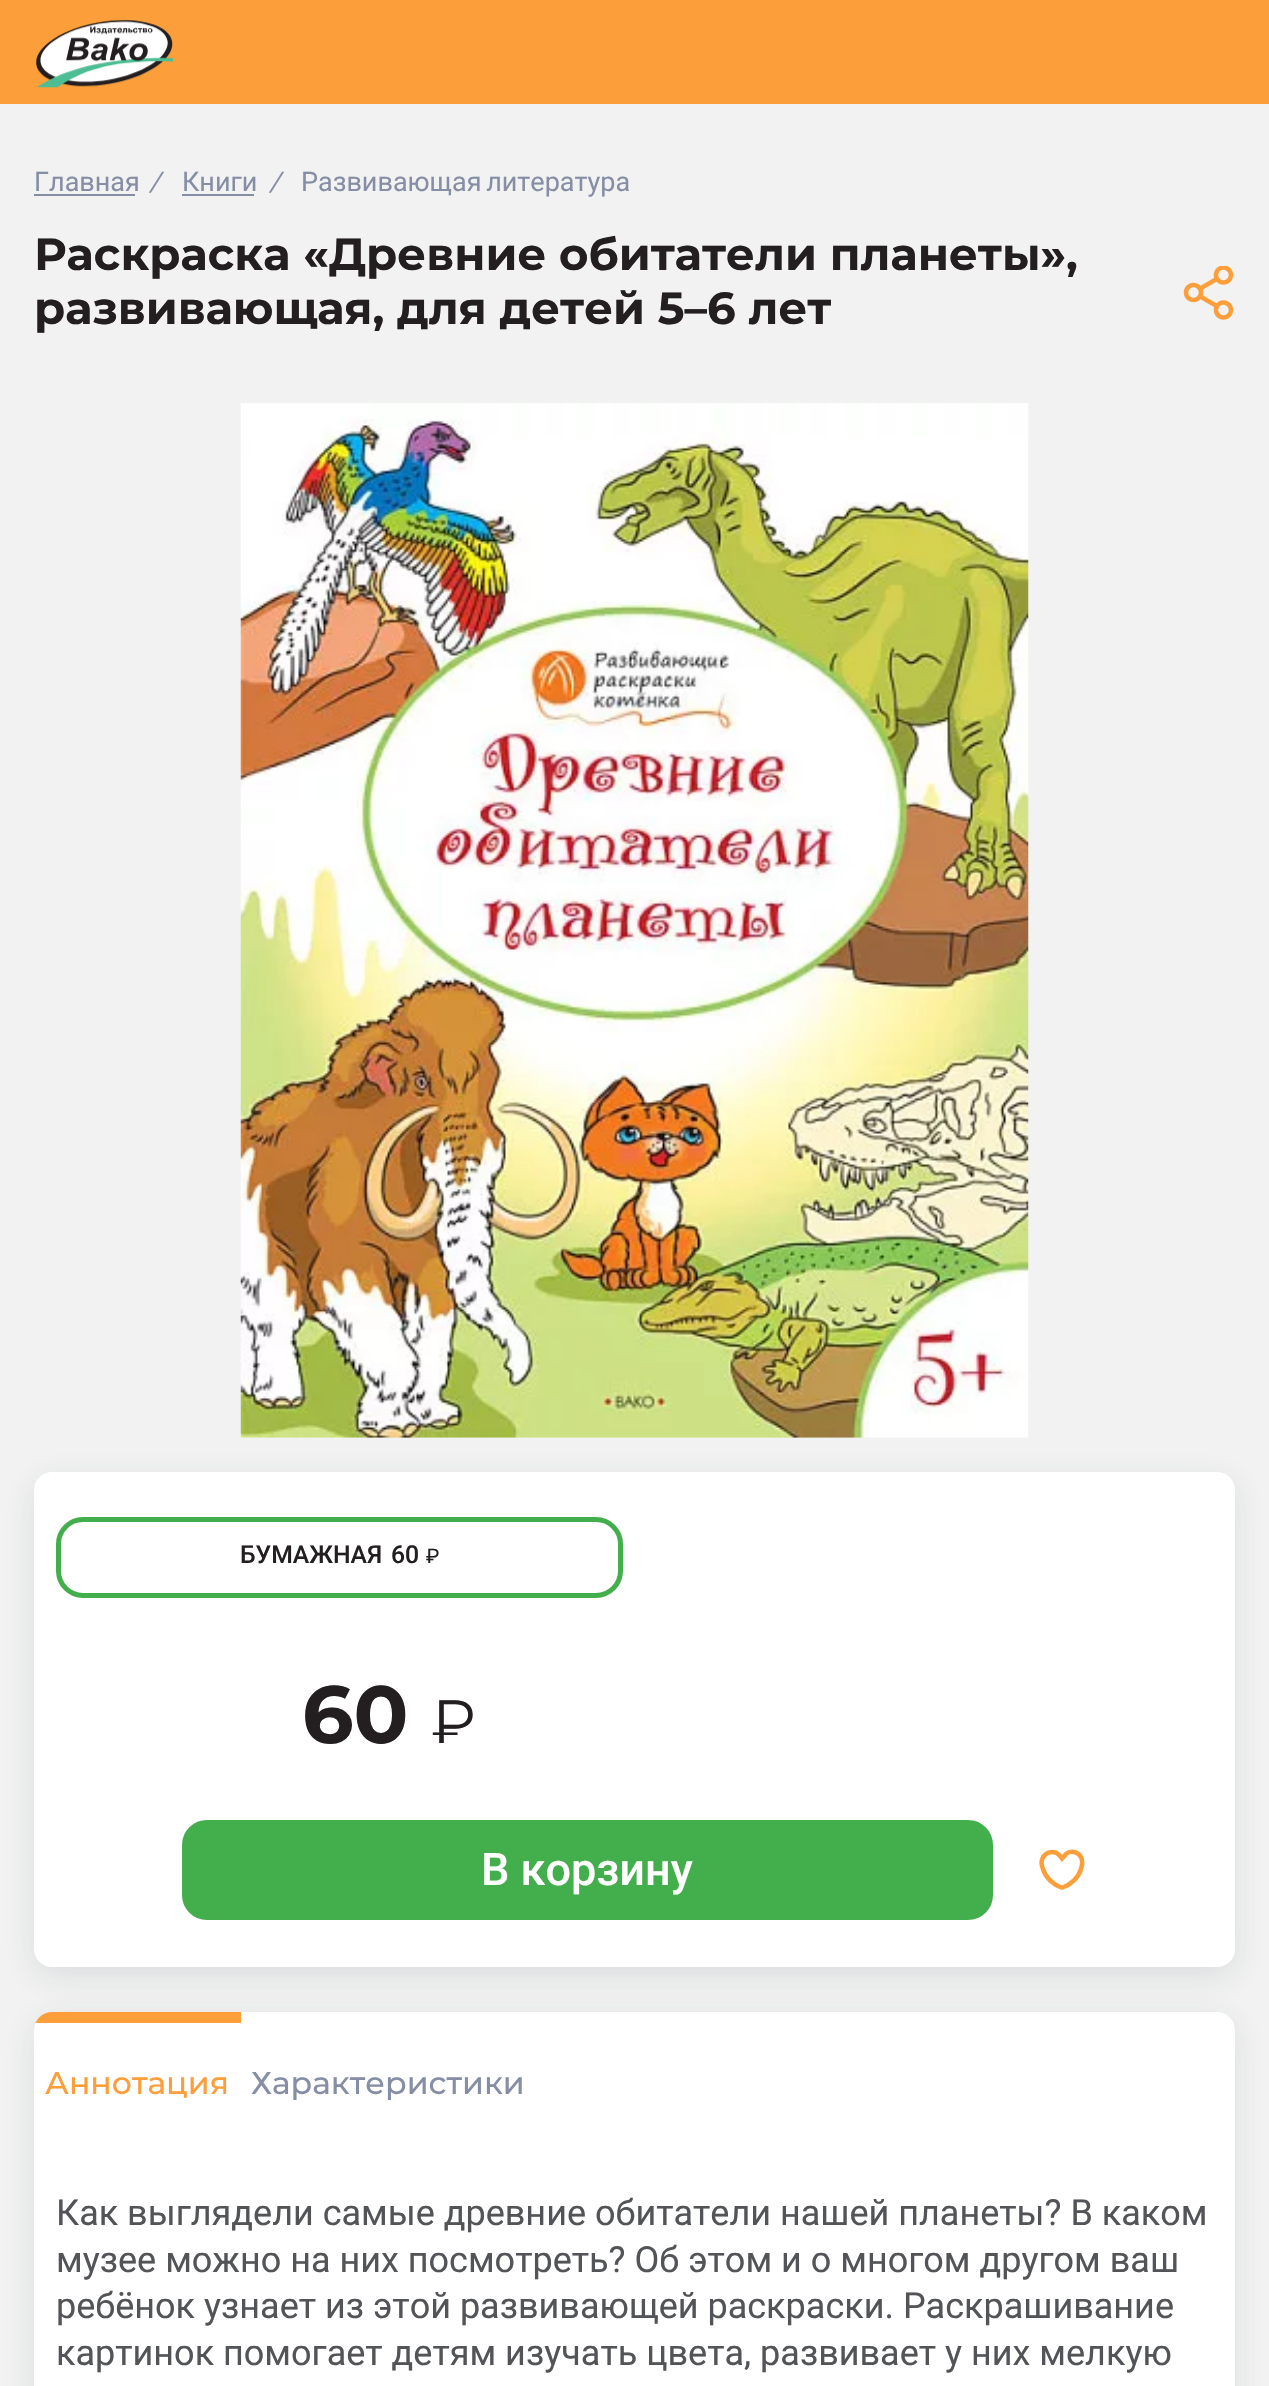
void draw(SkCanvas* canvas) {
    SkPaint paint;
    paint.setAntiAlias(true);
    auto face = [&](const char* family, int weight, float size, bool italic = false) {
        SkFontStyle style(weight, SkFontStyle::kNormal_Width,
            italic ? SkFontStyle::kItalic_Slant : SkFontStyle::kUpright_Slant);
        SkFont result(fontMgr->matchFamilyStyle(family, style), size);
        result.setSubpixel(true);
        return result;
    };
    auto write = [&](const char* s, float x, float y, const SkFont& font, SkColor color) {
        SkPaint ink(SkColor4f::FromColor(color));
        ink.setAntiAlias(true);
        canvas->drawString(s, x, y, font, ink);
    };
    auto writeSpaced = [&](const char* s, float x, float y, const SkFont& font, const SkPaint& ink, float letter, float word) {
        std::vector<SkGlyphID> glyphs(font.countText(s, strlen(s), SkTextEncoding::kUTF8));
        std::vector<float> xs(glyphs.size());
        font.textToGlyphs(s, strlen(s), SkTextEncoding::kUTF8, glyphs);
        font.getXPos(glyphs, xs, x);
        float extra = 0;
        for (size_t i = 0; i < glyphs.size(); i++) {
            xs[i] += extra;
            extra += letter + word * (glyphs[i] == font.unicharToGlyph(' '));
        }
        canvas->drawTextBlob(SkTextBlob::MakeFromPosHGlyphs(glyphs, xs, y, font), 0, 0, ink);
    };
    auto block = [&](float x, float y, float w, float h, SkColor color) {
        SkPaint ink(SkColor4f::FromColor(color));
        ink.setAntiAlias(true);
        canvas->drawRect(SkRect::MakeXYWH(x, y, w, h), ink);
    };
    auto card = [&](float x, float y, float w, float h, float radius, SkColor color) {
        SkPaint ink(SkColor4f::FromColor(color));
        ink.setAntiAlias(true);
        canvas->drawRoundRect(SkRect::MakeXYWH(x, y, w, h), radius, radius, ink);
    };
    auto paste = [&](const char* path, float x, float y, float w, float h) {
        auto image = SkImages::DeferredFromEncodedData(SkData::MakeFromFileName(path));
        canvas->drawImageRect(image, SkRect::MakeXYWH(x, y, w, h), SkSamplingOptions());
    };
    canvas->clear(SkColorSetRGB(242, 242, 242));
    block(0, 0, 1269, 104, SkColorSetRGB(252, 158, 58));
    paste("pic1.png", 36, 20, 137, 68);
    auto kFont1 = face("Roboto", 400, 27);
    write("Главная", 34, 191, kFont1, SkColorSetRGB(133, 142, 164));
    block(34, 194, 101, 2, SkColorSetRGB(133, 142, 164));
    auto kFont2 = face("Roboto", 400, 27, true);
    write("/", 149, 191, kFont2, SkColorSetRGB(133, 142, 164));
    write("Книги", 182, 191, kFont1, SkColorSetRGB(133, 142, 164));
    block(182, 194, 72, 2, SkColorSetRGB(133, 142, 164));
    write("/", 269, 191, kFont2, SkColorSetRGB(133, 142, 164));
    paint.setColor(SkColorSetRGB(133, 142, 164));
    writeSpaced("Развивающая литература", 301, 191, kFont1, paint, 0, -2);
    auto kFont3 = face("Montserrat", 700, 45);
    write("Раскраска «Древние обитатели планеты»,", 34, 270, kFont3, SkColorSetRGB(35, 31, 32));
    write("развивающая, для детей 5–6 лет", 34, 324, kFont3, SkColorSetRGB(35, 31, 32));
    paste("pic2.png", 1183, 266, 51, 54);
    paint.setColor(SkColorSetARGB(31, 44, 57, 66));
    paint.setMaskFilter(SkMaskFilter::MakeBlur(kNormal_SkBlurStyle, 16));
    canvas->drawRoundRect(SkRect::MakeXYWH(34, 2021, 1201, 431), 18, 18, paint);
    paint.setMaskFilter(nullptr);
    card(34, 2012, 1201, 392, 18, SK_ColorWHITE);
    canvas->save();
    canvas->clipPath(SkPathBuilder().moveTo(52, 2012).lineTo(1217, 2012).cubicTo(1227, 2012, 1235, 2020, 1235, 2030).lineTo(1235, 2592).cubicTo(1235, 2602, 1227, 2610, 1217, 2610).lineTo(52, 2610).cubicTo(42, 2610, 34, 2602, 34, 2592).lineTo(34, 2030).cubicTo(34, 2020, 42, 2012, 52, 2012).close().detach(), true);
    block(35, 2012, 206, 11, SkColorSetRGB(252, 158, 58));
    canvas->restore();
    paint.setMaskFilter(SkMaskFilter::MakeBlur(kNormal_SkBlurStyle, 16));
    canvas->drawRoundRect(SkRect::MakeXYWH(34, 1481, 1201, 495), 18, 18, paint);
    paint.setMaskFilter(nullptr);
    paste("pic3.png", 240, 403, 789, 1035);
    card(34, 1472, 1201, 495, 18, SK_ColorWHITE);
    paint.setStyle(SkPaint::kStroke_Style);
    paint.setStrokeWidth(5);
    paint.setColor(SkColorSetRGB(67, 174, 76));
    canvas->drawRoundRect(SkRect::MakeXYWH(58.5f, 1519.5f, 562, 76), 24.5f, 24.5f, paint);
    auto kFont4 = face("Roboto", 500, 24.75f);
    write("БУМАЖНАЯ", 240, 1563, kFont4, SkColorSetRGB(35, 31, 32));
    write("60", 391, 1563, kFont4, SkColorSetRGB(35, 31, 32));
    auto kFont5 = face("Roboto", 400, 20);
    write("₽", 426, 1563, kFont5, SkColorSetRGB(35, 31, 32));
    auto kFont6 = face("Montserrat", 700, 81);
    write("60", 302, 1743, kFont6, SkColorSetRGB(35, 31, 32));
    auto kFont7 = face("Montserrat", 400, 61);
    write("₽", 431, 1743, kFont7, SkColorSetRGB(35, 31, 32));
    paint.setStyle(SkPaint::kFill_Style);
    canvas->drawRoundRect(SkRect::MakeXYWH(181, 1819, 813, 102), 26, 26, paint);
    paint.setStyle(SkPaint::kStroke_Style);
    paint.setStrokeWidth(2);
    paint.setColor(SK_ColorWHITE);
    canvas->drawRoundRect(SkRect::MakeXYWH(181, 1819, 813, 102), 26, 26, paint);
    auto kFont8 = face("Roboto", 500, 45);
    write("В корзину", 481, 1885, kFont8, SK_ColorWHITE);
    paint.setStrokeWidth(4.5f);
    paint.setColor(SkColorSetRGB(252, 158, 58));
    canvas->drawPath(SkPathBuilder().moveTo(1060, 1856).lineTo(1062, 1858.5f).lineTo(1066.5f, 1853.5f).cubicTo(1072.5f, 1849.5f, 1080.5f, 1853, 1082, 1860).cubicTo(1082.5f, 1863, 1082, 1866.5f, 1081, 1869).cubicTo(1078.5f, 1877.5f, 1071, 1884.5f, 1062.5f, 1887.5f).lineTo(1061.5f, 1887.5f).cubicTo(1053, 1884.5f, 1045.5f, 1877.5f, 1043, 1869).cubicTo(1041.5f, 1865.5f, 1041, 1861.5f, 1042.5f, 1858.5f).cubicTo(1045.5f, 1851, 1055.5f, 1850, 1060, 1856).close().detach(), paint);
    auto kFont9 = face("Montserrat", 500, 31.5f);
    write("Аннотация", 45, 2094, kFont9, SkColorSetRGB(252, 158, 58));
    write("Характеристики", 251, 2094, kFont9, SkColorSetRGB(133, 142, 164));
    auto kFont10 = face("Roboto", 400, 36);
    write("Как выглядели самые древние обитатели нашей планеты? В каком", 56, 2225, kFont10, SkColorSetRGB(82, 84, 87));
    write("музее можно на них посмотреть? Об этом и о многом другом ваш", 56, 2272, kFont10, SkColorSetRGB(82, 84, 87));
    write("ребёнок узнает из этой развивающей раскраски. Раскрашивание", 56, 2318, kFont10, SkColorSetRGB(82, 84, 87));
    write("картинок помогает детям изучать цвета, развивает у них мелкую", 56, 2365, kFont10, SkColorSetRGB(82, 84, 87));
}
